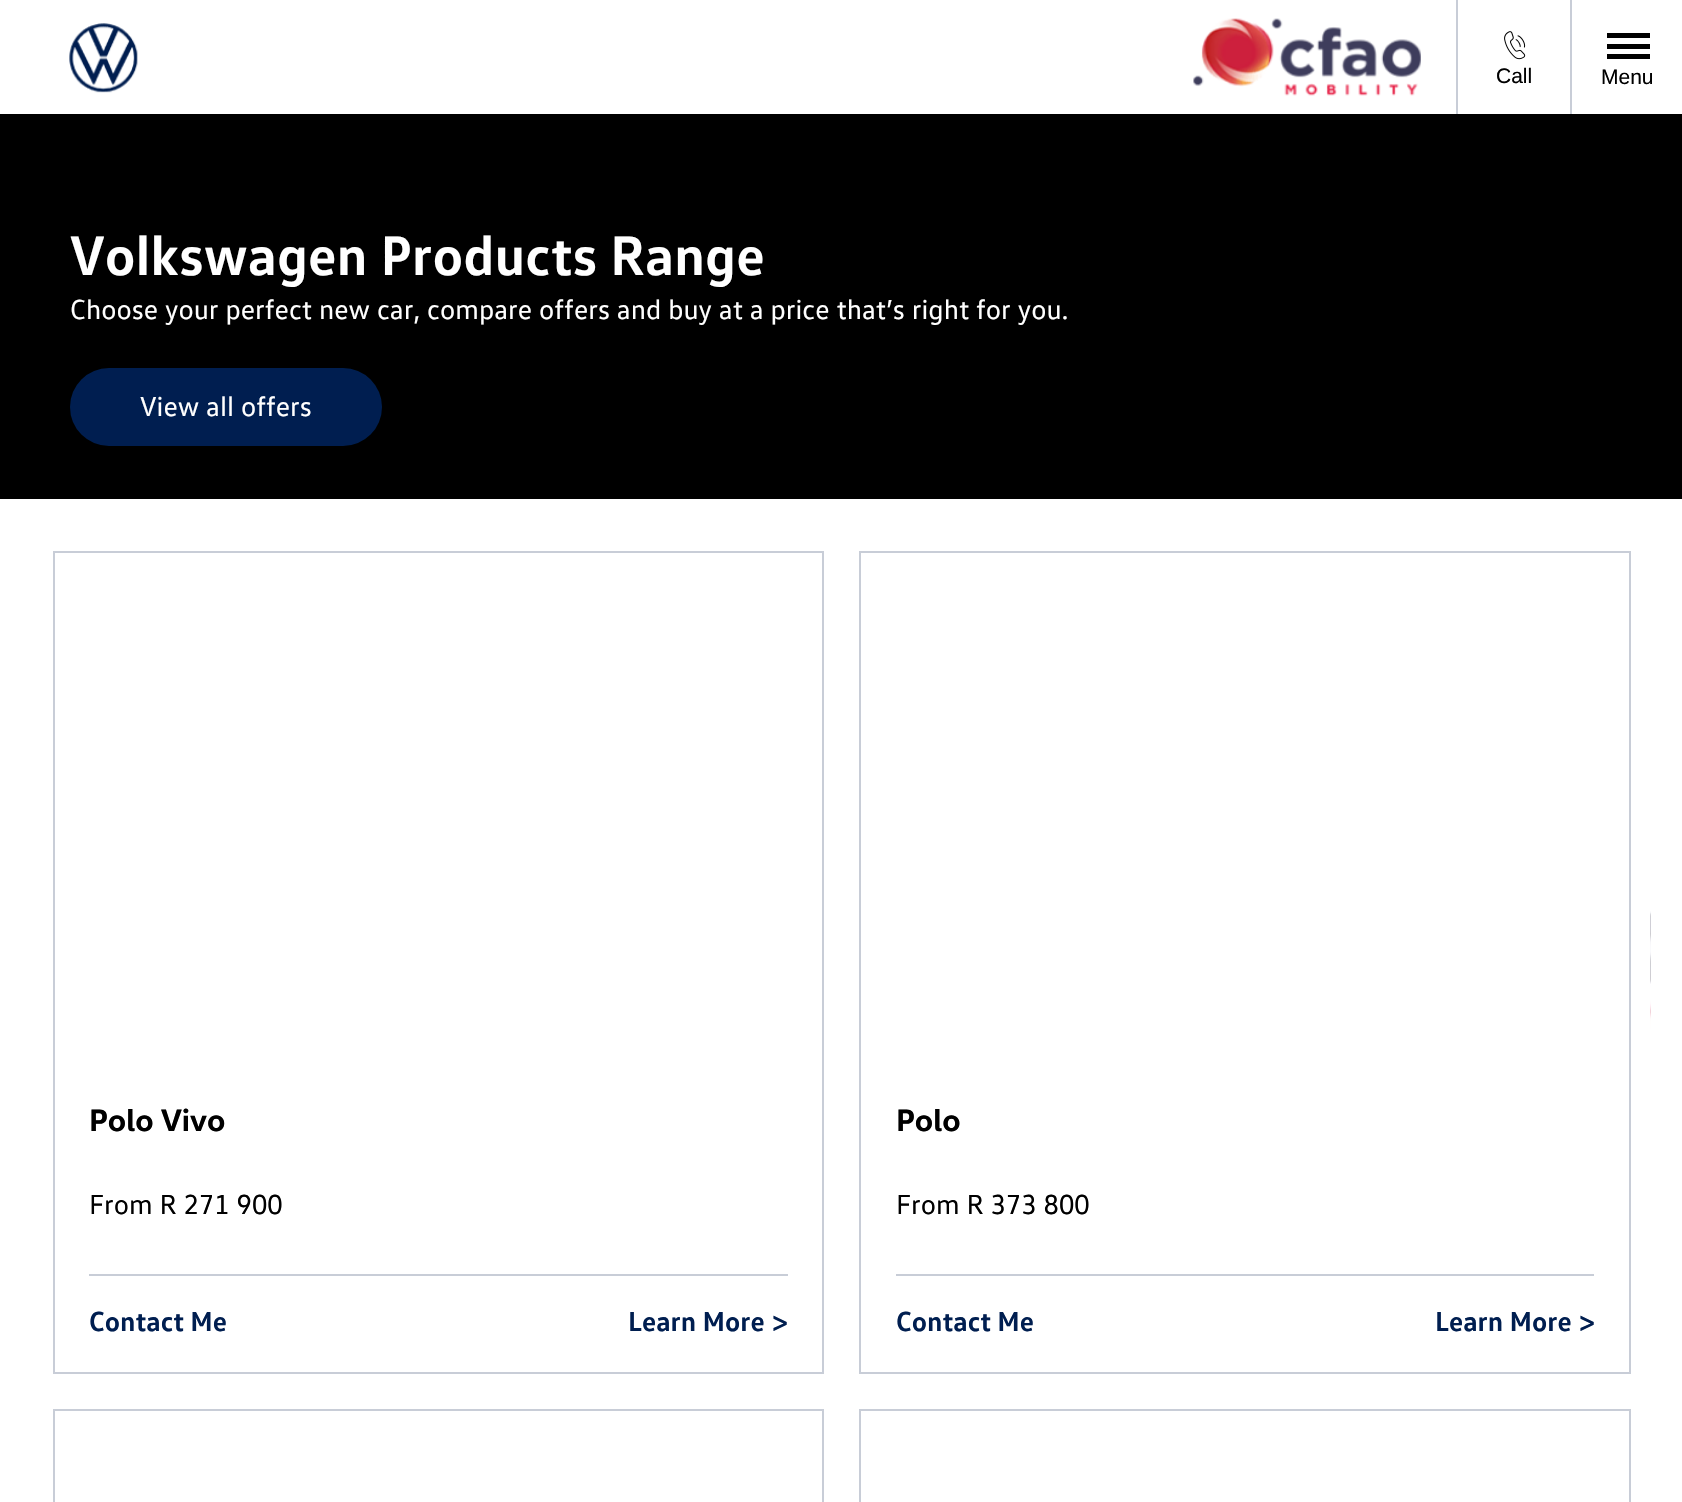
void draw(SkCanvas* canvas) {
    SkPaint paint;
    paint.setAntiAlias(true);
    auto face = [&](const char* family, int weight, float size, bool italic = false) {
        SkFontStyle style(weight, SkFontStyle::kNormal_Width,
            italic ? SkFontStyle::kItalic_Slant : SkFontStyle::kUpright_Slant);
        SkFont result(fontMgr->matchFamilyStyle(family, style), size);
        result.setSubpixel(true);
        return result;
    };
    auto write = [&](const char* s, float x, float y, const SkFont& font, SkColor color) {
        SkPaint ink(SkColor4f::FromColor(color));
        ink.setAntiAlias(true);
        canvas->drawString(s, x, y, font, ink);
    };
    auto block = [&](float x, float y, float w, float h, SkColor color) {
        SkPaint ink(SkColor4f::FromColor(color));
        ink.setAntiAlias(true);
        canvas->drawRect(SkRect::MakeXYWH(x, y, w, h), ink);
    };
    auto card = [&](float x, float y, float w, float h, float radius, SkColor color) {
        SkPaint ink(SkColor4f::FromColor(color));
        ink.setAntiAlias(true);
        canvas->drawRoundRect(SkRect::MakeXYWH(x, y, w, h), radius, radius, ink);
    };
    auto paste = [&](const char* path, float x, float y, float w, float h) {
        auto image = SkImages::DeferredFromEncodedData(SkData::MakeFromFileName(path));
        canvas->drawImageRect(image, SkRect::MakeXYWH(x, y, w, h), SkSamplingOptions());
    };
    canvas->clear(SK_ColorWHITE);
    block(0, 114, 1682, 385, SK_ColorBLACK);
    paint.setColor(SkColorSetARGB(51, 0, 0, 0));
    paint.setMaskFilter(SkMaskFilter::MakeBlur(kNormal_SkBlurStyle, 2.5f));
    canvas->drawRect(SkRect::MakeXYWH(0, 0, 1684, 114), paint);
    paint.setMaskFilter(nullptr);
    block(0, 0, 1682, 114, SK_ColorWHITE);
    paste("pic1.png", 69, 23, 69, 70);
    paste("pic2.png", 1193, 18, 228, 78);
    block(1456, 0, 2, 114, SkColorSetRGB(200, 205, 215));
    paste("pic3.png", 1504, 31, 22, 29);
    auto kFont1 = face("Liberation Sans", 400, 21);
    write("Call", 1496, 83, kFont1, SK_ColorBLACK);
    block(1570, 0, 2, 114, SkColorSetRGB(200, 205, 215));
    block(1607, 54, 43, 5, SK_ColorBLACK);
    block(1607, 33, 43, 5, SK_ColorBLACK);
    block(1607, 44, 43, 5, SK_ColorBLACK);
    write("Menu", 1601, 84, kFont1, SK_ColorBLACK);
    auto kFont2 = face("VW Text", 700, 56.5f);
    write("Volkswagen Products Range", 70, 275, kFont2, SK_ColorWHITE);
    auto kFont3 = face("VW Text", 400, 28);
    write("Choose your perfect new car, compare offers and buy at a price that’s right for you.", 70, 319, kFont3, SK_ColorWHITE);
    card(70, 368, 312, 78, 39, SkColorSetRGB(0, 30, 80));
    write("View all offers", 140, 416, kFont3, SK_ColorWHITE);
    paint.setStyle(SkPaint::kStroke_Style);
    paint.setStrokeWidth(2);
    paint.setColor(SkColorSetRGB(200, 205, 215));
    canvas->drawRect(SkRect::MakeXYWH(54, 552, 769, 821), paint);
    auto kFont4 = face("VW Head", 700, 31.5f);
    write("Polo Vivo", 89, 1131, kFont4, SK_ColorBLACK);
    write("From R 271 900", 89, 1214, kFont3, SK_ColorBLACK);
    auto kFont5 = face("VW Text", 700, 28);
    write("Contact Me", 89, 1331, kFont5, SkColorSetRGB(0, 30, 80));
    write("Learn More", 628, 1331, kFont5, SkColorSetRGB(0, 30, 80));
    write(">", 772, 1331, kFont5, SkColorSetRGB(0, 30, 80));
    block(89, 1274, 699, 2, SkColorSetRGB(200, 205, 215));
    canvas->drawRect(SkRect::MakeXYWH(860, 552, 770, 821), paint);
    write("Polo", 896, 1131, kFont4, SK_ColorBLACK);
    write("From R 373 800", 896, 1214, kFont3, SK_ColorBLACK);
    write("Contact Me", 896, 1331, kFont5, SkColorSetRGB(0, 30, 80));
    write("Learn More", 1435, 1331, kFont5, SkColorSetRGB(0, 30, 80));
    write(">", 1579, 1331, kFont5, SkColorSetRGB(0, 30, 80));
    block(896, 1274, 698, 2, SkColorSetRGB(200, 205, 215));
    canvas->drawRect(SkRect::MakeXYWH(54, 1410, 769, 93), paint);
    canvas->drawRect(SkRect::MakeXYWH(860, 1410, 770, 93), paint);
    paste("pic4.png", 1650, 853, 1, 185);
}
